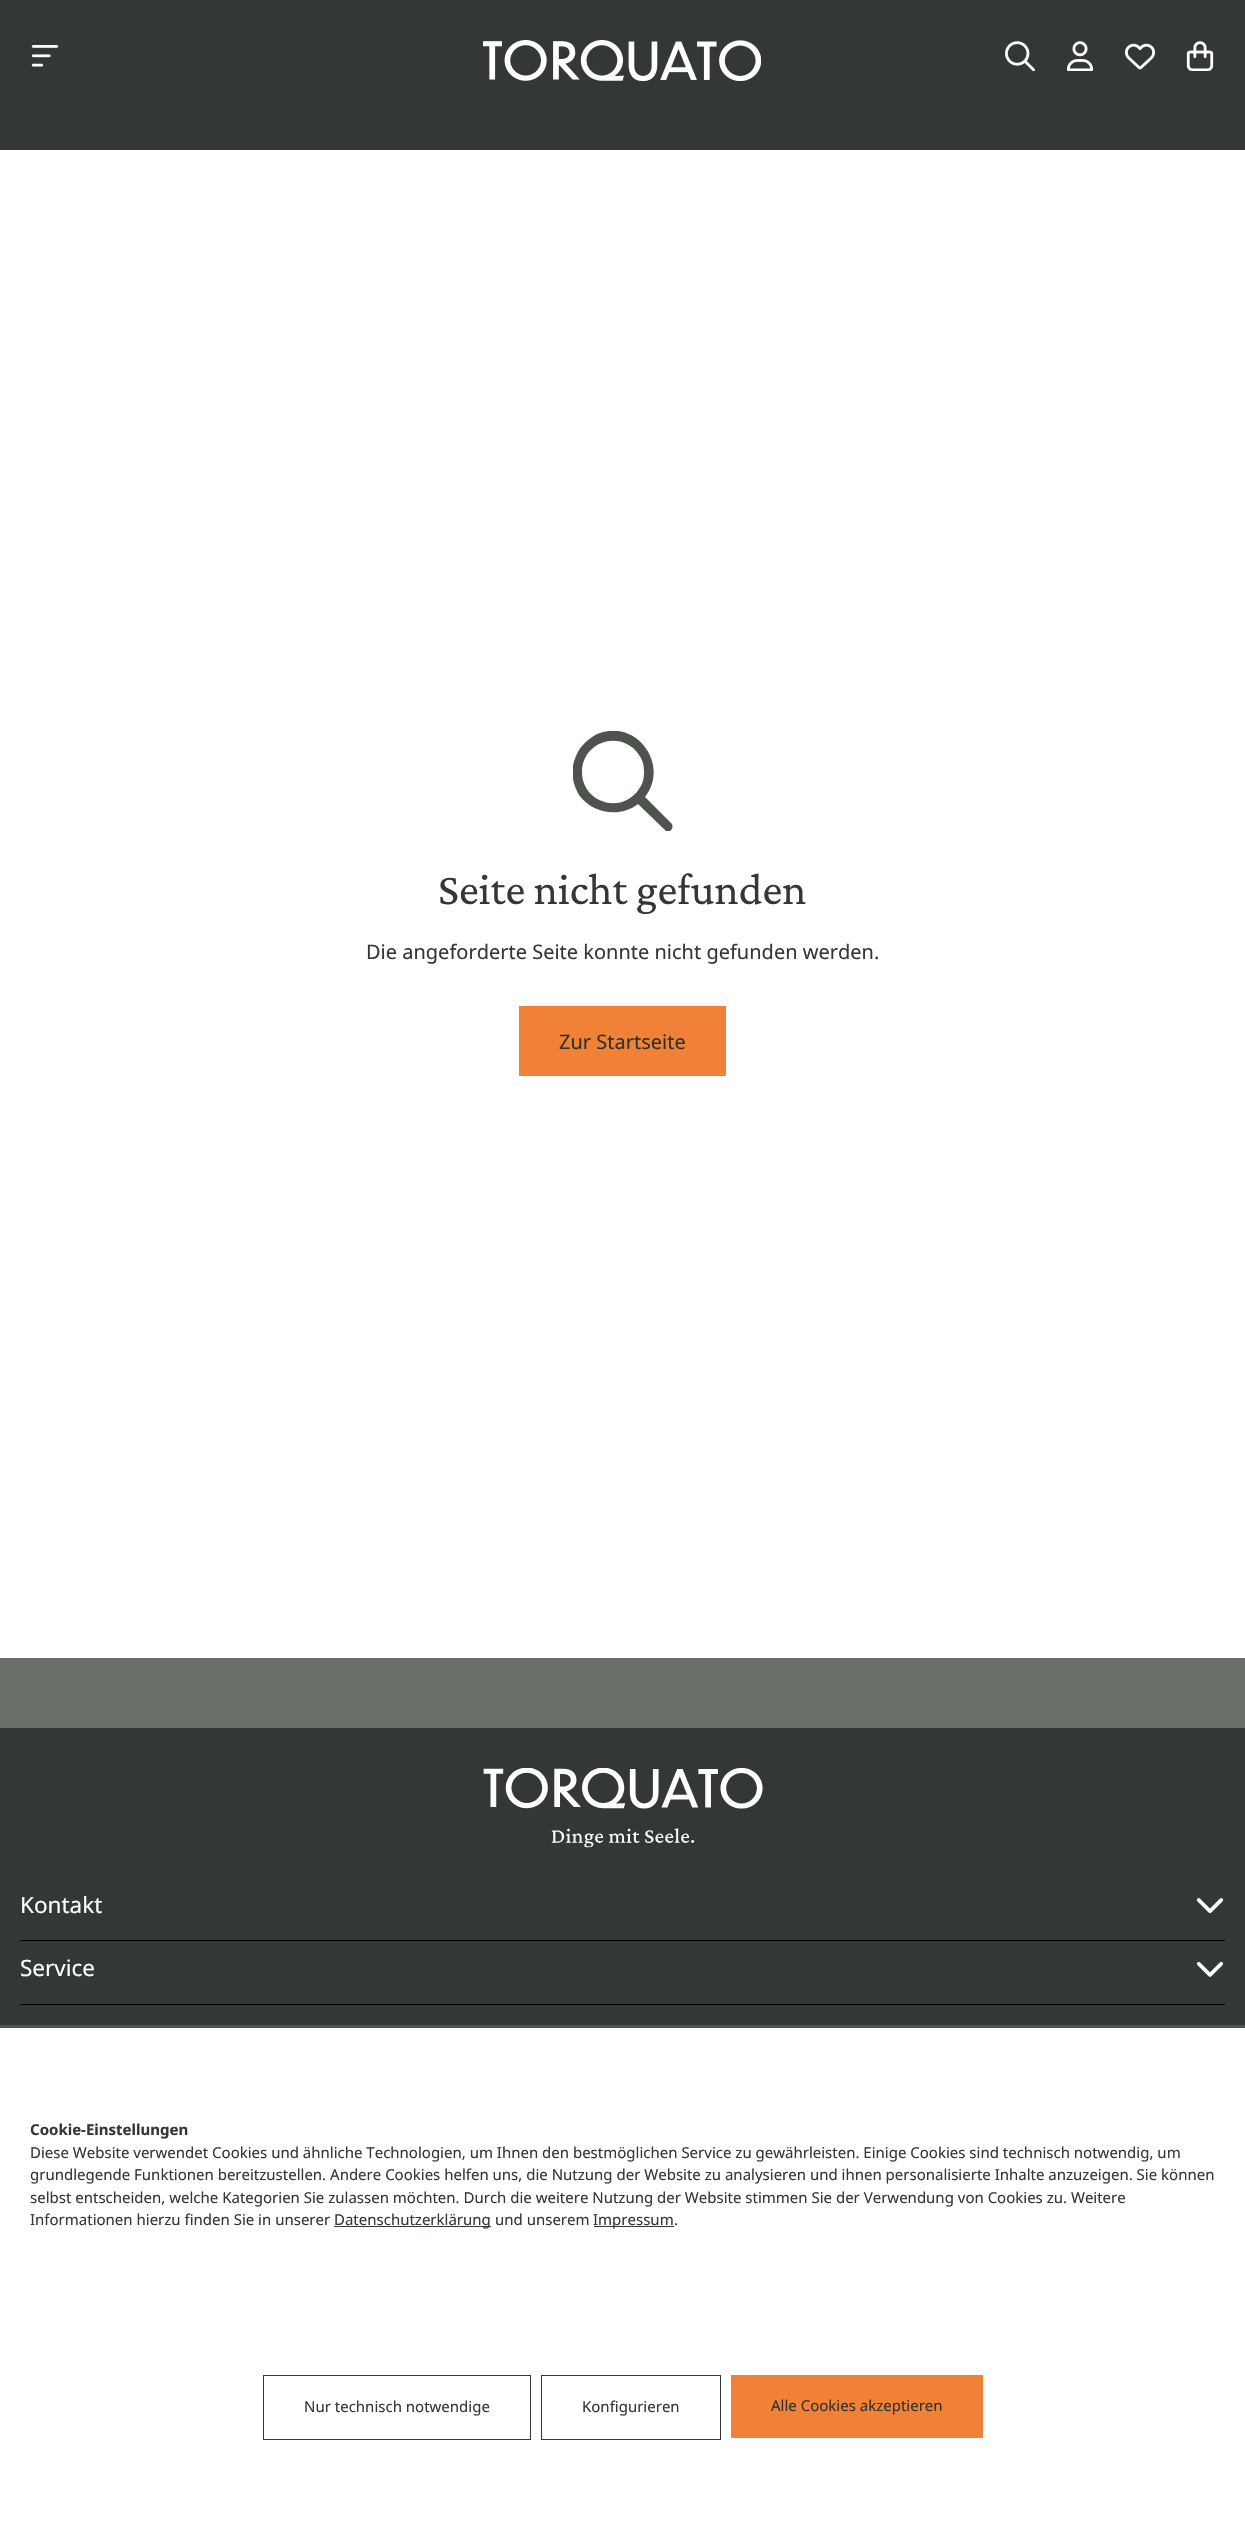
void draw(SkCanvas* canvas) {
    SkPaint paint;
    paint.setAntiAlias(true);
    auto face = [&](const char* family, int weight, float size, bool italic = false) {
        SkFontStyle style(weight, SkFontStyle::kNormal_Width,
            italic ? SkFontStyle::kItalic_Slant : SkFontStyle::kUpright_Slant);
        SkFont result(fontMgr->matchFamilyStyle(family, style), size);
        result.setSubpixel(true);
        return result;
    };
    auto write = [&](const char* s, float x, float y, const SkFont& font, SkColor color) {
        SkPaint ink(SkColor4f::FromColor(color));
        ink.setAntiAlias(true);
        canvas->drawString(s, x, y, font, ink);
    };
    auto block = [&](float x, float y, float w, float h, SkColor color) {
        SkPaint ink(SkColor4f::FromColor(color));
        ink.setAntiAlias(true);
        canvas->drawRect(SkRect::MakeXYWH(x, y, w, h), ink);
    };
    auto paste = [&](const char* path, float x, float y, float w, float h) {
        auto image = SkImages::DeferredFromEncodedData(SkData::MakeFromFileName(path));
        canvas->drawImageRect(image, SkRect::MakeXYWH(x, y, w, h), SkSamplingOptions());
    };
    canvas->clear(SK_ColorWHITE);
    block(0, 0, 1245, 150, SkColorSetRGB(52, 56, 52));
    paste("pic1.png", 31, 45, 28, 22);
    paste("pic2.png", 483, 40, 278, 41);
    paste("pic3.png", 1005, 41, 30, 30);
    paste("pic4.png", 1066, 41, 28, 30);
    paste("pic5.png", 1125, 43, 30, 27);
    paste("pic6.png", 1186, 41, 28, 30);
    canvas->save();
    canvas->clipRect(SkRect::MakeXYWH(573, 731, 100, 100));
    paint.setColor(SkColorSetRGB(78, 84, 77));
    canvas->drawPath(SkPathBuilder().moveTo(644, 772).cubicTo(644, 766, 643, 760, 639, 755).cubicTo(622, 729, 582, 741, 582, 772).cubicTo(582, 803, 622, 815, 639, 789).cubicTo(643, 784, 644, 778, 644, 772).close().moveTo(638, 804).cubicTo(620, 818, 593, 814, 579, 795).cubicTo(572, 783, 570, 769, 576, 756).cubicTo(580, 746, 588, 739, 597, 734).cubicTo(637, 718, 670, 765, 645, 797).lineTo(671, 823).cubicTo(673, 825, 673, 828, 671, 830).cubicTo(669, 832, 666, 832, 665, 830).close().detach(), paint);
    canvas->restore();
    auto kFont1 = face("Crimson Pro", 400, 45);
    write("Seite nicht gefunden", 438, 904, kFont1, SkColorSetRGB(52, 56, 52));
    auto kFont2 = face("Noto Sans", 400, 20);
    write("Die angeforderte Seite konnte nicht gefunden werden.", 366, 959, kFont2, SkColorSetRGB(52, 56, 52));
    block(519, 1006, 207, 70, SkColorSetRGB(240, 129, 54));
    write("Zur Startseite", 559, 1049, kFont2, SkColorSetRGB(47, 50, 47));
    block(0, 1658, 1245, 70, SkColorSetRGB(104, 112, 104));
    block(0, 1728, 1245, 297, SkColorSetRGB(52, 56, 52));
    paste("pic7.png", 483, 1768, 280, 80);
    block(20, 1940, 1205, 1, SK_ColorBLACK);
    auto kFont3 = face("Noto Sans", 400, 22.5f);
    write("Kontakt", 20, 1913, kFont3, SK_ColorWHITE);
    paste("pic8.png", 1196, 1898, 28, 16);
    block(20, 2004, 1205, 1, SK_ColorBLACK);
    write("Service", 20, 1976, kFont3, SK_ColorWHITE);
    paste("pic9.png", 1196, 1961, 28, 16);
    block(0, 2025, 1245, 3, SkColorSetRGB(78, 84, 77));
    auto kFont4 = face("Noto Sans", 700, 15);
    write("Cookie-Einstellungen", 30, 2135, kFont4, SkColorSetRGB(52, 56, 52));
    auto kFont5 = face("Noto Sans", 400, 15);
    write("Diese Website verwendet Cookies und ähnliche Technologien, um Ihnen den bestmöglichen Service zu gewährleisten. Einige Cookies sind technisch notwendig, um", 30, 2158, kFont5, SkColorSetRGB(52, 56, 52));
    write("grundlegende Funktionen bereitzustellen. Andere Cookies helfen uns, die Nutzung der Website zu analysieren und ihnen personalisierte Inhalte anzuzeigen. Sie können", 30, 2180, kFont5, SkColorSetRGB(52, 56, 52));
    write("selbst entscheiden, welche Kategorien Sie zulassen möchten. Durch die weitere Nutzung der Website stimmen Sie der Verwendung von Cookies zu. Weitere", 30, 2203, kFont5, SkColorSetRGB(52, 56, 52));
    write("Informationen hierzu finden Sie in unserer", 30, 2225, kFont5, SkColorSetRGB(52, 56, 52));
    block(334, 2226, 157, 1, SkColorSetRGB(52, 56, 52));
    write("Datenschutzerklärung", 334, 2225, kFont5, SkColorSetRGB(52, 56, 52));
    write("und unserem", 495, 2225, kFont5, SkColorSetRGB(52, 56, 52));
    block(594, 2226, 80, 1, SkColorSetRGB(52, 56, 52));
    write("Impressum", 593, 2225, kFont5, SkColorSetRGB(52, 56, 52));
    write(".", 674, 2225, kFont5, SkColorSetRGB(52, 56, 52));
    paint.setStyle(SkPaint::kStroke_Style);
    paint.setStrokeWidth(1);
    paint.setColor(SkColorSetRGB(52, 56, 52));
    canvas->drawRect(SkRect::MakeXYWH(263.5f, 2375.5f, 267, 64), paint);
    write("Nur technisch notwendige", 304, 2412, kFont5, SkColorSetRGB(52, 56, 52));
    canvas->drawRect(SkRect::MakeXYWH(541.5f, 2375.5f, 179, 64), paint);
    write("Konfigurieren", 582, 2412, kFont5, SkColorSetRGB(52, 56, 52));
    block(731, 2375, 252, 63, SkColorSetRGB(240, 129, 54));
    write("Alle Cookies akzeptieren", 771, 2411, kFont5, SkColorSetRGB(47, 50, 47));
}
